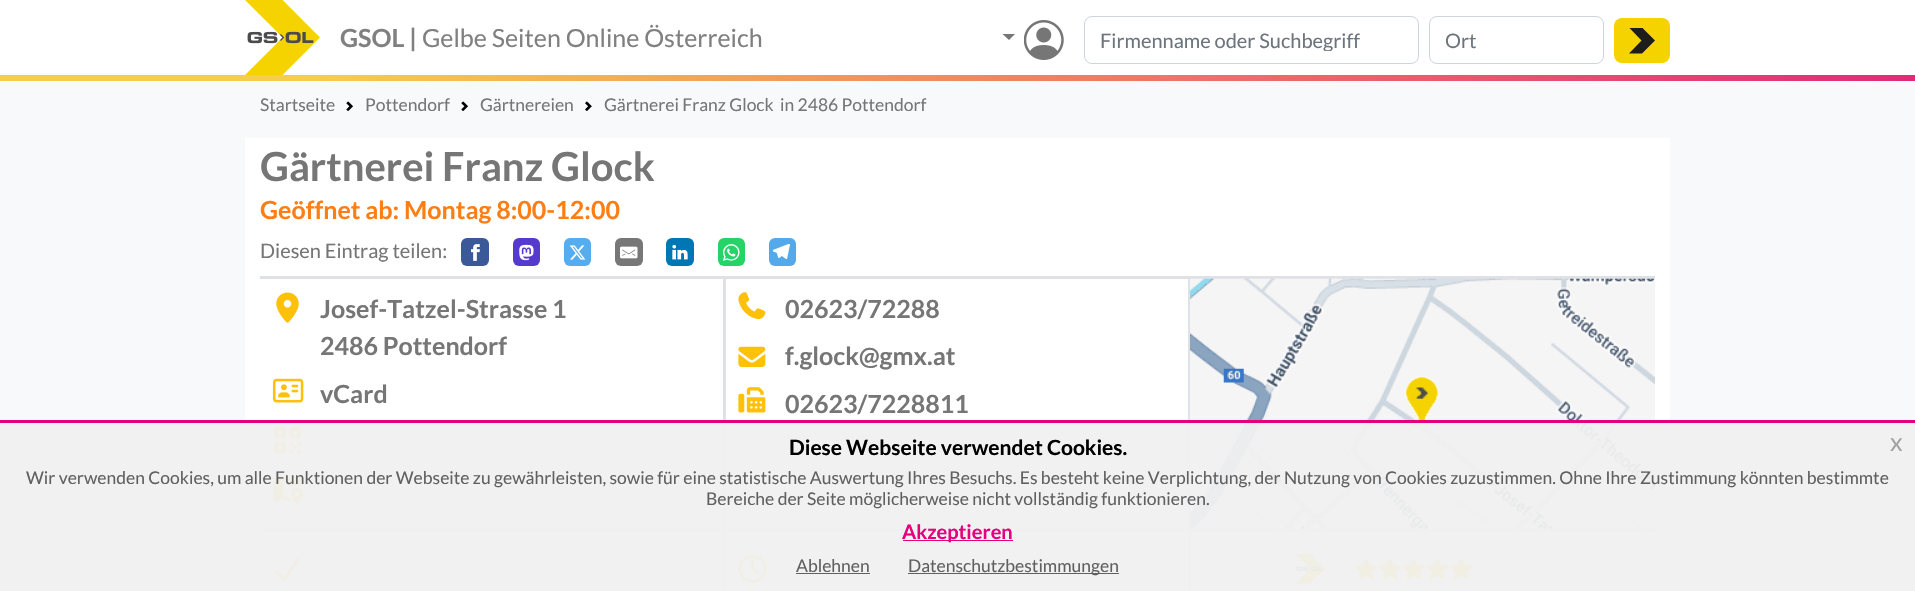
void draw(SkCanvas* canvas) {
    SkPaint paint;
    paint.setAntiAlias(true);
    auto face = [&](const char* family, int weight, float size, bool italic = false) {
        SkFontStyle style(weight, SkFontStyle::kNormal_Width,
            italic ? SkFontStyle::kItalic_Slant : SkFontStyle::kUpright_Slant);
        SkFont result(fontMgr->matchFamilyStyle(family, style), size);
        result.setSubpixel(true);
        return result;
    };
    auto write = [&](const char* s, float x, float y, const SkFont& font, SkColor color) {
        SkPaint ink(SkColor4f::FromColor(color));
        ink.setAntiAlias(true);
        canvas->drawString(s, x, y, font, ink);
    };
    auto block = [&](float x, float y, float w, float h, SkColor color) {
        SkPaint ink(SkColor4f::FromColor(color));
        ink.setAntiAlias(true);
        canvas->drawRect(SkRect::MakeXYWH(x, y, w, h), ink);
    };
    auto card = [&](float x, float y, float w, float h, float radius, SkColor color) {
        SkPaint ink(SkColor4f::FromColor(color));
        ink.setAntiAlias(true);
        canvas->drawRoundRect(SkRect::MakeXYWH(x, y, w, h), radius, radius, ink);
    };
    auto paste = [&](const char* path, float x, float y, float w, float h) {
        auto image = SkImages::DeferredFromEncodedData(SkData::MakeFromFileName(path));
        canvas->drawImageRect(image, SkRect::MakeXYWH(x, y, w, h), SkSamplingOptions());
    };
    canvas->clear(SK_ColorWHITE);
    paste("pic1.png", 245, 0, 75, 75);
    auto kFont1 = face("Lato", 700, 25);
    write("GSOL |", 340, 47, kFont1, SkColorSetRGB(128, 128, 128));
    auto kFont2 = face("Lato", 400, 25);
    write("Gelbe Seiten Online Österreich", 422, 47, kFont2, SkColorSetRGB(128, 128, 128));
    paint.setColor(SkColorSetRGB(118, 118, 118));
    canvas->drawPath(SkPathBuilder().moveTo(1002.5f, 34).lineTo(1015, 34).lineTo(1009, 40).close().detach(), paint);
    paste("pic2.png", 1024, 20, 40, 40);
    paint.setStyle(SkPaint::kStroke_Style);
    paint.setStrokeWidth(1);
    paint.setColor(SkColorSetRGB(206, 212, 218));
    canvas->drawRoundRect(SkRect::MakeXYWH(1084.5f, 16.5f, 334, 47), 7.5f, 7.5f, paint);
    canvas->save();
    canvas->clipRect(SkRect::MakeXYWH(1100, 28, 284, 23));
    auto kFont3 = face("Lato", 400, 20);
    write("Firmenname oder Suchbegriff", 1100, 48, kFont3, SkColorSetRGB(108, 117, 125));
    canvas->restore();
    canvas->drawRoundRect(SkRect::MakeXYWH(1429.5f, 16.5f, 174, 47), 7.5f, 7.5f, paint);
    write("Ort", 1445, 48, kFont3, SkColorSetRGB(108, 117, 125));
    card(1614, 18, 56, 45, 8, SkColorSetRGB(245, 211, 0));
    canvas->save();
    canvas->clipRect(SkRect::MakeXYWH(1629, 28, 26, 26));
    paint.setStyle(SkPaint::kFill_Style);
    paint.setColor(SkColorSetRGB(29, 29, 27));
    canvas->drawPath(SkPathBuilder().moveTo(1642, 53.5f).lineTo(1629, 53.5f).lineTo(1641.5f, 40.5f).lineTo(1629, 27.5f).lineTo(1642, 27.5f).lineTo(1655, 40.5f).close().detach(), paint);
    canvas->restore();
    {
        const SkColor colors[] = {SkColorSetRGB(246, 205, 77), SkColorSetRGB(226, 20, 127)};
        const float stops[] = {0.15f, 1};
        const SkPoint ends[] = {{785, -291}, {1164, 521}};
        paint.setShader(SkGradientShader::MakeLinear(ends, colors, stops, 2, SkTileMode::kClamp));
        paint.setAlpha(255);
    }
    canvas->drawRect(SkRect::MakeXYWH(0, 75, 1915, 6), paint);
    block(0, 81, 1915, 510, SkColorSetRGB(248, 249, 250));
    auto kFont4 = face("Lato", 400, 17.5f);
    write("Startseite", 260, 111, kFont4, SkColorSetRGB(118, 118, 118));
    paste("pic3.png", 346, 101, 7, 10);
    write("Pottendorf", 365, 111, kFont4, SkColorSetRGB(118, 118, 118));
    paste("pic3.png", 461, 101, 7, 10);
    write("Gärtnereien", 480, 111, kFont4, SkColorSetRGB(118, 118, 118));
    paste("pic4.png", 585, 101, 7, 10);
    write("Gärtnerei Franz Glock", 604, 111, kFont4, SkColorSetRGB(118, 118, 118));
    write("in 2486 Pottendorf", 780, 111, kFont4, SkColorSetRGB(118, 118, 118));
    block(245, 138, 1425, 453, SK_ColorWHITE);
    auto kFont5 = face("Lato", 700, 40);
    write("Gärtnerei Franz Glock", 260, 181, kFont5, SkColorSetRGB(118, 118, 118));
    write("Geöffnet ab: Montag 8:00-12:00", 260, 219, kFont1, SkColorSetRGB(253, 126, 20));
    write("Diesen Eintrag teilen:", 260, 258, kFont3, SkColorSetRGB(118, 118, 118));
    card(461, 238, 28, 28, 6, SkColorSetRGB(59, 89, 152));
    paste("pic5.png", 471, 244, 9, 17);
    card(513, 238, 27, 28, 6, SkColorSetRGB(86, 58, 205));
    paste("pic6.png", 519, 244, 15, 17);
    card(564, 238, 27, 28, 6, SkColorSetRGB(85, 172, 238));
    paste("pic7.png", 569, 245, 17, 15);
    card(615, 238, 28, 28, 6, SkColorSetRGB(119, 119, 119));
    paste("pic8.png", 620, 246, 18, 13);
    card(666, 238, 28, 28, 6, SkColorSetRGB(0, 119, 181));
    paste("pic9.png", 672, 244, 16, 16);
    card(718, 238, 27, 28, 6, SkColorSetRGB(37, 211, 102));
    paste("pic10.png", 723, 244, 17, 17);
    card(769, 238, 27, 28, 6, SkColorSetRGB(84, 169, 235));
    paste("pic11.png", 773, 244, 17, 15);
    block(260, 276, 465, 3, SkColorSetRGB(222, 226, 230));
    block(723, 276, 3, 253, SkColorSetRGB(222, 226, 230));
    paste("pic12.png", 276, 292, 23, 31);
    write("Josef-Tatzel-Strasse 1", 320, 318, kFont1, SkColorSetRGB(118, 118, 118));
    write("2486 Pottendorf", 320, 355, kFont1, SkColorSetRGB(118, 118, 118));
    paste("pic13.png", 272, 378, 32, 25);
    write("vCard", 320, 403, kFont1, SkColorSetRGB(118, 118, 118));
    paste("pic14.png", 274, 426, 27, 28);
    paste("pic15.png", 273, 476, 31, 29);
    block(725, 276, 465, 3, SkColorSetRGB(222, 226, 230));
    block(1188, 276, 3, 253, SkColorSetRGB(222, 226, 230));
    paste("pic16.png", 738, 292, 28, 28);
    write("02623/72288", 785, 318, kFont1, SkColorSetRGB(118, 118, 118));
    paste("pic17.png", 738, 346, 28, 21);
    write("f.glock@gmx.at", 785, 365, kFont1, SkColorSetRGB(118, 118, 118));
    paste("pic18.png", 738, 387, 28, 26);
    write("02623/7228811", 785, 413, kFont1, SkColorSetRGB(118, 118, 118));
    block(1190, 276, 465, 3, SkColorSetRGB(222, 226, 230));
    paste("pic19.png", 1190, 278, 465, 251);
    block(260, 529, 465, 3, SkColorSetRGB(222, 226, 230));
    block(723, 529, 3, 62, SkColorSetRGB(222, 226, 230));
    paste("pic20.png", 275, 558, 25, 23);
    block(725, 529, 465, 3, SkColorSetRGB(222, 226, 230));
    block(1188, 529, 3, 62, SkColorSetRGB(222, 226, 230));
    paste("pic21.png", 738, 554, 29, 29);
    block(1190, 529, 465, 3, SkColorSetRGB(222, 226, 230));
    paste("pic22.png", 1295, 554, 30, 30);
    paste("pic23.png", 1355, 558, 23, 22);
    paste("pic24.png", 1379, 558, 22, 22);
    paste("pic25.png", 1403, 558, 22, 22);
    paste("pic26.png", 1426, 558, 23, 22);
    paste("pic23.png", 1450, 558, 23, 22);
    block(0, 423, 1915, 168, SkColorSetARGB(242, 240, 240, 240));
    block(0, 420, 1915, 3, SkColorSetRGB(228, 0, 124));
    auto kFont6 = face("Lato", 700, 21);
    write("Diese Webseite verwendet Cookies.", 789, 455, kFont6, SK_ColorBLACK);
    write("x", 1890, 451, kFont2, SkColorSetRGB(162, 162, 162));
    write("Wir verwenden Cookies, um alle Funktionen der Webseite zu gewährleisten, sowie für eine statistische Auswertung Ihres Besuchs. Es besteht keine Verplichtung, der Nutzung von Cookies zuzustimmen. Ohne Ihre Zustimmung könnten bestimmte", 26, 484, kFont4, SkColorSetRGB(96, 96, 96));
    write("Bereiche der Seite möglicherweise nicht vollständig funktionieren.", 706, 505, kFont4, SkColorSetRGB(96, 96, 96));
    block(903, 540, 110, 1, SkColorSetRGB(228, 0, 124));
    auto kFont7 = face("Lato", 700, 20);
    write("Akzeptieren", 902, 539, kFont7, SkColorSetRGB(228, 0, 124));
    write("Ablehnen", 796, 572, kFont4, SkColorSetRGB(96, 96, 96));
    block(796, 573, 74, 1, SkColorSetRGB(96, 96, 96));
    block(908, 573, 211, 1, SkColorSetRGB(96, 96, 96));
    write("Datenschutzbestimmungen", 908, 572, kFont4, SkColorSetRGB(96, 96, 96));
}
